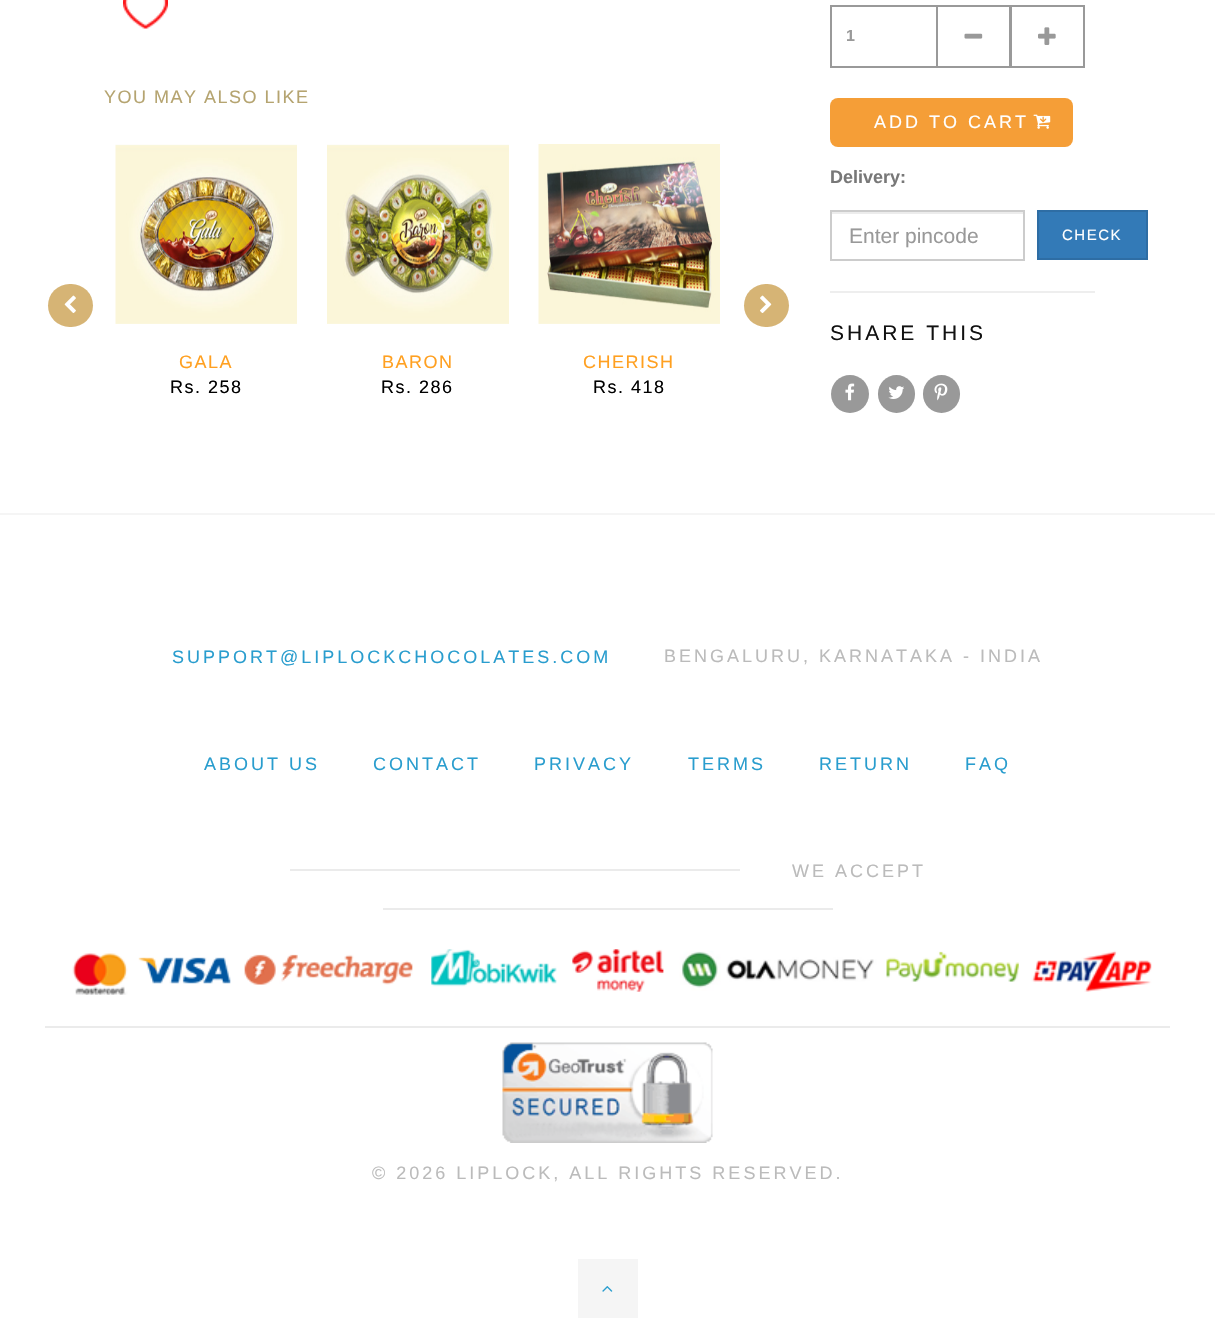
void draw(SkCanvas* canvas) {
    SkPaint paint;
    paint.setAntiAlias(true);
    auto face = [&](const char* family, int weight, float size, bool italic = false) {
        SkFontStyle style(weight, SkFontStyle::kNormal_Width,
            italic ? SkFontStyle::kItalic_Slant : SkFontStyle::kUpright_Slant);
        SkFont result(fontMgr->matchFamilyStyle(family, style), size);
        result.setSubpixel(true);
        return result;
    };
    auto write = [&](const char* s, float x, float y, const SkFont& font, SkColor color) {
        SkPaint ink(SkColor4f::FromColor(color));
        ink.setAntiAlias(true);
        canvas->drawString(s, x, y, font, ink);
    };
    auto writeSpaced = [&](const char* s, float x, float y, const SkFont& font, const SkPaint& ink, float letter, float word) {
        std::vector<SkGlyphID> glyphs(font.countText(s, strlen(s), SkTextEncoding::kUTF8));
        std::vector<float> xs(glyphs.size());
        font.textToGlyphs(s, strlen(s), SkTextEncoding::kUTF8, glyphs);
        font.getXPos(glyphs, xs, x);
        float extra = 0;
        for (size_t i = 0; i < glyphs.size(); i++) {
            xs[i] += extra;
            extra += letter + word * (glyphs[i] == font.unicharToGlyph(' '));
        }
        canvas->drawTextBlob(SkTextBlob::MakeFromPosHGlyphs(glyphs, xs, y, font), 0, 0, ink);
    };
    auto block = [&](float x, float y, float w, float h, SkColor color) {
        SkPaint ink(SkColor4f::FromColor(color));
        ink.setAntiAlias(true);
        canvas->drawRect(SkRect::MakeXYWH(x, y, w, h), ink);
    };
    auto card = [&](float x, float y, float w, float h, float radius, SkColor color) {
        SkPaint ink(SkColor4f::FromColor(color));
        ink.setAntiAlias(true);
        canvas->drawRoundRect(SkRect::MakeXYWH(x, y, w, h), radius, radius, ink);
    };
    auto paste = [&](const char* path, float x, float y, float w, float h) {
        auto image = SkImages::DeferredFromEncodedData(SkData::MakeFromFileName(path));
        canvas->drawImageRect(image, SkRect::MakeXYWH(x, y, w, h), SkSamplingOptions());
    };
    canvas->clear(SK_ColorWHITE);
    paste("pic1.png", 123, 0, 45, 29);
    auto kFont1 = face("Liberation Sans", 400, 18);
    paint.setColor(SkColorSetRGB(181, 164, 112));
    writeSpaced("YOU MAY ALSO LIKE", 104, 103, kFont1, paint, 1.5f, 0);
    card(48, 284, 45, 43, 21.5f, SkColorSetRGB(214, 180, 117));
    paste("pic2.png", 64, 295, 12, 18);
    card(744, 284, 45, 43, 21.5f, SkColorSetRGB(214, 180, 117));
    paste("pic3.png", 760, 295, 12, 18);
    paste("pic4.png", 115, 144, 182, 180);
    paint.setColor(SkColorSetRGB(255, 160, 32));
    writeSpaced("GALA", 179, 368, kFont1, paint, 1.5f, 0);
    paint.setColor(SK_ColorBLACK);
    writeSpaced("Rs. 258", 170, 393, kFont1, paint, 1.5f, 0);
    paste("pic5.png", 327, 144, 182, 180);
    paint.setColor(SkColorSetRGB(255, 160, 32));
    writeSpaced("BARON", 382, 368, kFont1, paint, 1.5f, 0);
    paint.setColor(SK_ColorBLACK);
    writeSpaced("Rs. 286", 381, 393, kFont1, paint, 1.5f, 0);
    paste("pic6.png", 538, 144, 182, 180);
    paint.setColor(SkColorSetRGB(255, 160, 32));
    writeSpaced("CHERISH", 583, 368, kFont1, paint, 1.5f, 0);
    paint.setColor(SK_ColorBLACK);
    writeSpaced("Rs. 418", 593, 393, kFont1, paint, 1.5f, 0);
    paint.setStyle(SkPaint::kStroke_Style);
    paint.setStrokeWidth(2);
    paint.setColor(SkColorSetRGB(153, 153, 153));
    canvas->drawRect(SkRect::MakeXYWH(831, 6, 106, 61), paint);
    auto kFont2 = face("Liberation Sans", 700, 16);
    write("1", 846, 41, kFont2, SkColorSetRGB(153, 153, 153));
    canvas->drawRect(SkRect::MakeXYWH(1011, 6, 73, 61), paint);
    canvas->drawRect(SkRect::MakeXYWH(937, 6, 73, 61), paint);
    paste("pic7.png", 964, 33, 19, 6);
    paste("pic8.png", 1038, 27, 18, 18);
    card(830, 98, 243, 49, 8, SkColorSetRGB(245, 158, 55));
    paint.setStyle(SkPaint::kFill_Style);
    paint.setColor(SK_ColorWHITE);
    writeSpaced("ADD TO CART", 874, 128, kFont1, paint, 3, 0);
    paste("pic9.png", 1033, 114, 18, 15);
    auto kFont3 = face("Liberation Sans", 700, 18);
    write("Delivery:", 830, 183, kFont3, SkColorSetRGB(120, 120, 120));
    block(831, 212, 192, 2, SkColorSetRGB(236, 236, 236));
    paint.setStyle(SkPaint::kStroke_Style);
    paint.setColor(SkColorSetRGB(204, 204, 204));
    canvas->drawRect(SkRect::MakeXYWH(831, 211, 193, 49), paint);
    auto kFont4 = face("Liberation Sans", 400, 21);
    write("Enter pincode", 849, 243, kFont4, SkColorSetRGB(153, 153, 153));
    paint.setStyle(SkPaint::kFill_Style);
    paint.setColor(SkColorSetRGB(51, 122, 183));
    canvas->drawRect(SkRect::MakeXYWH(1038, 211, 109, 48), paint);
    paint.setStyle(SkPaint::kStroke_Style);
    paint.setColor(SkColorSetRGB(46, 109, 164));
    canvas->drawRect(SkRect::MakeXYWH(1038, 211, 109, 48), paint);
    auto kFont5 = face("Liberation Sans", 400, 15);
    paint.setStyle(SkPaint::kFill_Style);
    paint.setColor(SK_ColorWHITE);
    writeSpaced("CHECK", 1062, 240, kFont5, paint, 1.5f, 0);
    block(830, 291, 265, 2, SkColorSetRGB(238, 238, 238));
    paint.setColor(SkColorSetRGB(17, 17, 17));
    writeSpaced("SHARE THIS", 830, 340, kFont4, paint, 3, 0);
    paint.setColor(SkColorSetRGB(153, 153, 153));
    canvas->drawCircle(850, 394, 19, paint);
    paste("pic10.png", 845, 383, 10, 18);
    card(878, 375, 37, 38, 18.5f, SkColorSetRGB(153, 153, 153));
    paste("pic11.png", 888, 386, 16, 13);
    card(923, 375, 37, 38, 18.5f, SkColorSetRGB(153, 153, 153));
    paste("pic12.png", 934, 383, 14, 18);
    block(0, 513, 1215, 2, SkColorSetRGB(245, 245, 245));
    paint.setColor(SkColorSetRGB(41, 157, 206));
    writeSpaced("SUPPORT@LIPLOCKCHOCOLATES.COM", 172, 663, kFont1, paint, 3, 0);
    paint.setColor(SkColorSetRGB(187, 187, 187));
    writeSpaced("BENGALURU, KARNATAKA - INDIA", 664, 662, kFont1, paint, 3, 0);
    paint.setColor(SkColorSetRGB(41, 157, 206));
    writeSpaced("ABOUT US", 204, 770, kFont1, paint, 3, 0);
    writeSpaced("CONTACT", 373, 770, kFont1, paint, 3, 0);
    writeSpaced("PRIVACY", 534, 770, kFont1, paint, 3, 0);
    writeSpaced("TERMS", 688, 770, kFont1, paint, 3, 0);
    writeSpaced("RETURN", 819, 770, kFont1, paint, 3, 0);
    writeSpaced("FAQ", 965, 770, kFont1, paint, 3, 0);
    block(290, 869, 450, 2, SkColorSetRGB(235, 235, 235));
    paint.setColor(SkColorSetRGB(187, 187, 187));
    writeSpaced("WE ACCEPT", 792, 877, kFont1, paint, 3, 0);
    block(383, 908, 450, 2, SkColorSetRGB(235, 235, 235));
    block(45, 1026, 1125, 2, SkColorSetRGB(235, 235, 235));
    paste("pic13.png", 72, 949, 1080, 46);
    paste("pic14.png", 502, 1042, 211, 101);
    writeSpaced("© 2026 LIPLOCK, ALL RIGHTS RESERVED.", 372, 1179, kFont1, paint, 3, 0);
    block(578, 1259, 60, 59, SkColorSetRGB(245, 245, 245));
    paste("pic15.png", 602, 1286, 11, 6);
}
